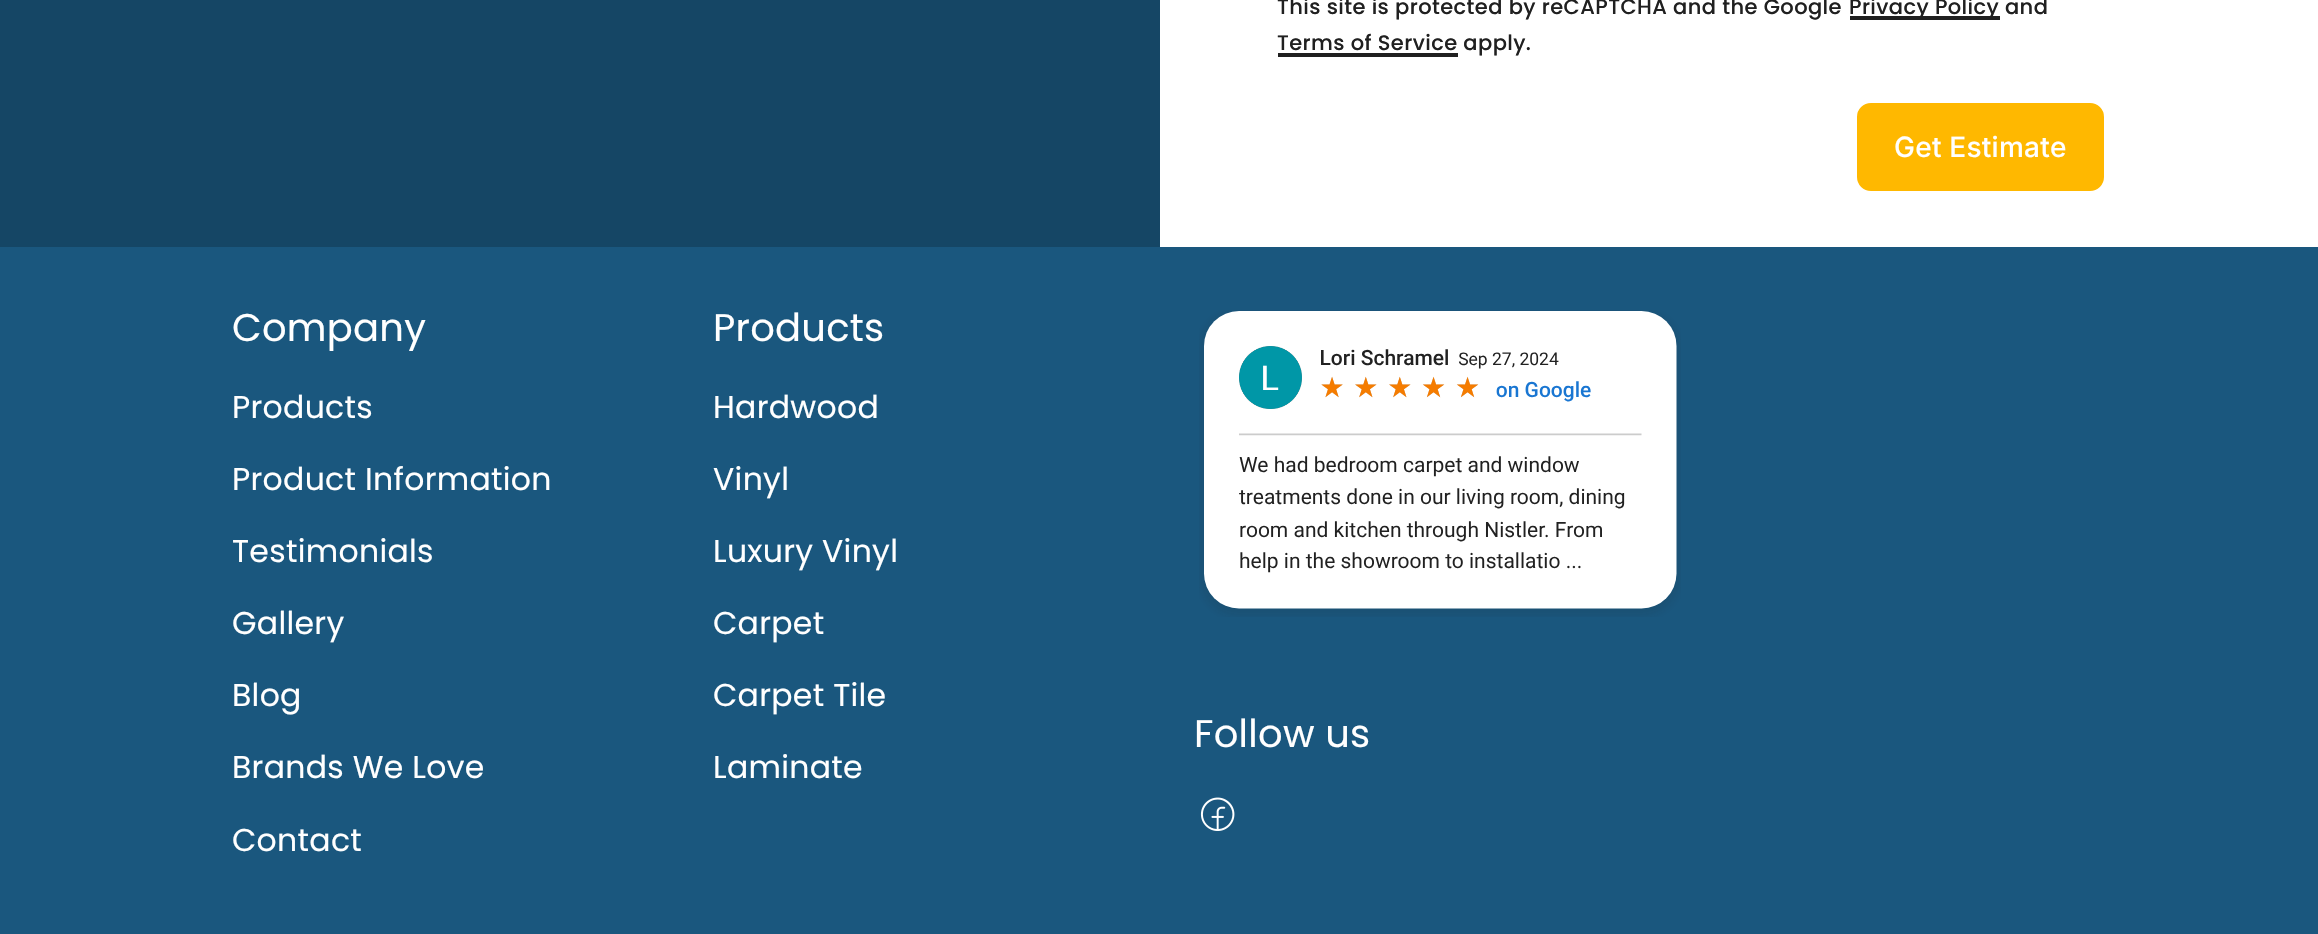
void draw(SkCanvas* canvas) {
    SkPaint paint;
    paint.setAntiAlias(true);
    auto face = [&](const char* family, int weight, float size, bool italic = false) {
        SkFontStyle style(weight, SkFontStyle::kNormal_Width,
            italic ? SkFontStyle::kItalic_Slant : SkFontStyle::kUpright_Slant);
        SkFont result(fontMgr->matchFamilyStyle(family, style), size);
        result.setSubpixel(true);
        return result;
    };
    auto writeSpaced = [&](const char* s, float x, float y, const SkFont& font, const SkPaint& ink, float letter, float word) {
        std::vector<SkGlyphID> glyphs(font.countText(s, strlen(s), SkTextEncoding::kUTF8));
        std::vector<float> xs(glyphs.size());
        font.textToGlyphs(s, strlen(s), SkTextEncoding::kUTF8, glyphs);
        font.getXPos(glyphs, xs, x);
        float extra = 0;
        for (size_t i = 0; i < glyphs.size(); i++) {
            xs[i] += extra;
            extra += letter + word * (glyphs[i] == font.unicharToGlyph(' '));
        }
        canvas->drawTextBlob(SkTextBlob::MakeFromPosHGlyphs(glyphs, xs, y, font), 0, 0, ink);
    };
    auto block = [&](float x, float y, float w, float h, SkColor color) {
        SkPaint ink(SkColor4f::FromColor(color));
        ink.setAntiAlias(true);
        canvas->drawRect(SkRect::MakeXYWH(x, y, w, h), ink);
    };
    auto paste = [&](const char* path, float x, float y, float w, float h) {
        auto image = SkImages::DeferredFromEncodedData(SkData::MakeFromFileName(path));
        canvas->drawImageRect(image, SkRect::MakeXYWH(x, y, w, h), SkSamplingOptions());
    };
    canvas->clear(SK_ColorWHITE);
    block(0, 0, 1160, 247, SkColorSetRGB(21, 70, 101));
    auto kFont1 = face("Poppins", 500, 21);
    paint.setColor(SkColorSetRGB(32, 32, 32));
    writeSpaced("This site is protected by reCAPTCHA and the Google", 1277, 14, kFont1, paint, 0.4f, 0);
    block(1850, 16, 150, 4, SkColorSetRGB(32, 32, 32));
    writeSpaced("Privacy Policy and", 1849, 14, kFont1, paint, 0.4f, 0);
    block(1278, 53, 180, 4, SkColorSetRGB(32, 32, 32));
    writeSpaced("Terms of Service apply.", 1277, 50, kFont1, paint, 0.4f, 0);
    paint.setColor(SkColorSetRGB(255, 184, 0));
    canvas->drawRoundRect(SkRect::MakeXYWH(1858, 104, 245, 86), 13, 13, paint);
    paint.setStyle(SkPaint::kStroke_Style);
    paint.setStrokeWidth(2);
    canvas->drawRoundRect(SkRect::MakeXYWH(1858, 104, 245, 86), 13, 13, paint);
    auto kFont2 = face("Inter", 500, 28);
    paint.setStyle(SkPaint::kFill_Style);
    paint.setColor(SK_ColorWHITE);
    writeSpaced("Get Estimate", 1894, 157, kFont2, paint, 0.25f, 0);
    block(0, 247, 2318, 687, SkColorSetRGB(26, 87, 126));
    auto kFont3 = face("Poppins", 400, 38.5f);
    writeSpaced("Company", 232, 341, kFont3, paint, 0.25f, 0);
    auto kFont4 = face("Poppins", 400, 31.5f);
    writeSpaced("Products", 232, 418, kFont4, paint, 0.3f, 0);
    writeSpaced("Product Information", 232, 490, kFont4, paint, 0.3f, 0);
    writeSpaced("Testimonials", 232, 562, kFont4, paint, 0.3f, 0);
    writeSpaced("Gallery", 232, 634, kFont4, paint, 0.3f, 0);
    writeSpaced("Blog", 232, 706, kFont4, paint, 0.3f, 0);
    writeSpaced("Brands We Love", 232, 778, kFont4, paint, 0.3f, 0);
    writeSpaced("Contact", 232, 851, kFont4, paint, 0.3f, 0);
    writeSpaced("Products", 713, 341, kFont3, paint, 0.25f, 0);
    writeSpaced("Hardwood", 713, 418, kFont4, paint, 0.3f, 0);
    writeSpaced("Vinyl", 713, 490, kFont4, paint, 0.3f, 0);
    writeSpaced("Luxury Vinyl", 713, 562, kFont4, paint, 0.3f, 0);
    writeSpaced("Carpet", 713, 634, kFont4, paint, 0.3f, 0);
    writeSpaced("Carpet Tile", 713, 706, kFont4, paint, 0.3f, 0);
    writeSpaced("Laminate", 713, 778, kFont4, paint, 0.3f, 0);
    paste("pic1.png", 1199, 310, 482, 307);
    writeSpaced("Follow us", 1194, 747, kFont3, paint, 0.25f, 0);
    paste("pic2.png", 1200, 797, 35, 34);
}
